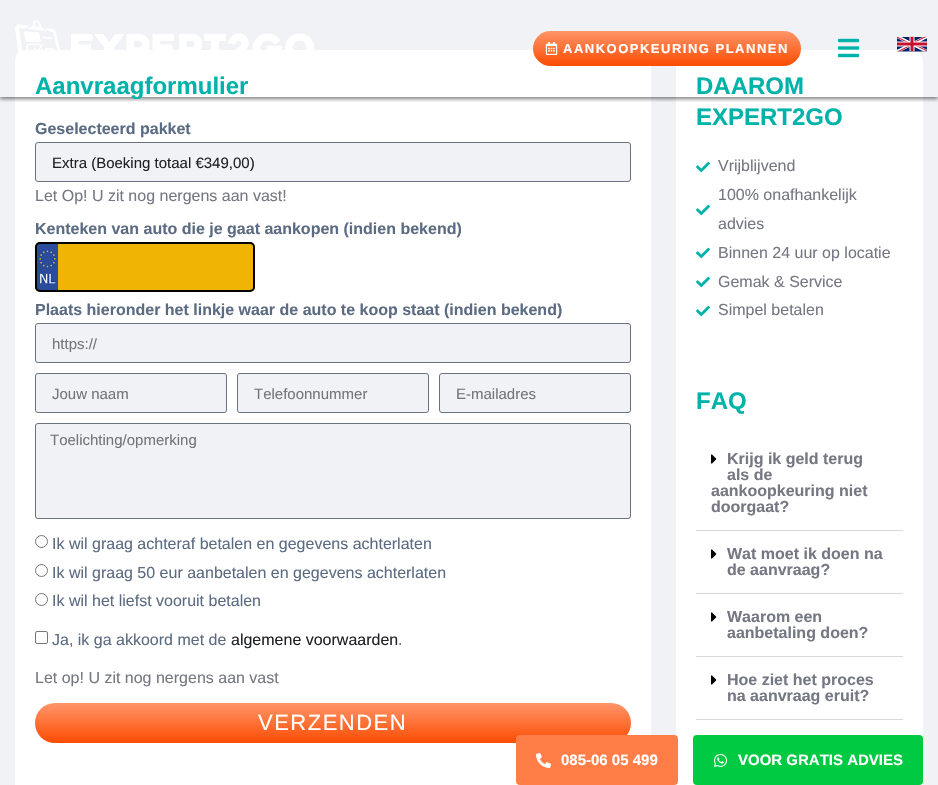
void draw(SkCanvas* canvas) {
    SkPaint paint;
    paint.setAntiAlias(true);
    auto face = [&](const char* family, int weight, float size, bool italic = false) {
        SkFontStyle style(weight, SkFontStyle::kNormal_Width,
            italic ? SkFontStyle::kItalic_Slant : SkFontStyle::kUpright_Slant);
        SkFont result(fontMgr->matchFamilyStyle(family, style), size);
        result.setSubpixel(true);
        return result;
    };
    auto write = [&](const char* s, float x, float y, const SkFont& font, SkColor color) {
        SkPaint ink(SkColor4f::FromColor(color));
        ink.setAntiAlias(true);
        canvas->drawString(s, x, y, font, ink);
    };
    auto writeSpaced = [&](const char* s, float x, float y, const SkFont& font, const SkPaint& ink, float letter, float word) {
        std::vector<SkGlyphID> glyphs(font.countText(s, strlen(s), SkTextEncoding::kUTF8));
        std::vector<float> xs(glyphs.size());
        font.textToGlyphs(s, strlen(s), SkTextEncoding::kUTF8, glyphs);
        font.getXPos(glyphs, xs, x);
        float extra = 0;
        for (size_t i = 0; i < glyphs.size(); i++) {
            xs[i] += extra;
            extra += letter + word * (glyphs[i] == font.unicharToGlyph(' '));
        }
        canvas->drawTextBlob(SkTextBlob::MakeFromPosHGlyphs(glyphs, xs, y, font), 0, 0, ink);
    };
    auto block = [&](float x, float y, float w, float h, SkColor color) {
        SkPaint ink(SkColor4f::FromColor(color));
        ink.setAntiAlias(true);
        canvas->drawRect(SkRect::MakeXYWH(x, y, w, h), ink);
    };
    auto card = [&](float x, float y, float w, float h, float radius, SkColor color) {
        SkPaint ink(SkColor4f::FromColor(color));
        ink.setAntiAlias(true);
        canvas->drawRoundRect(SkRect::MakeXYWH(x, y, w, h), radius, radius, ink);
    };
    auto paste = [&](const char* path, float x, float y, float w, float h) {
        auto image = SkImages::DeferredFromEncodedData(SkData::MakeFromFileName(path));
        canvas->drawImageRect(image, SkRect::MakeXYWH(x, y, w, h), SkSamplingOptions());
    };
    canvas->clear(SkColorSetRGB(241, 242, 246));
    card(15, 50, 636, 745, 10, SK_ColorWHITE);
    card(676, 50, 247, 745, 10, SK_ColorWHITE);
    canvas->save();
    canvas->clipRect(SkRect::MakeXYWH(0, 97, 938, 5));
    paint.setColor(SkColorSetARGB(128, 0, 0, 0));
    paint.setMaskFilter(SkMaskFilter::MakeBlur(kNormal_SkBlurStyle, 2));
    canvas->drawRect(SkRect::MakeXYWH(0, 2, 938, 97), paint);
    paint.setMaskFilter(nullptr);
    canvas->restore();
    paste("pic1.png", 15, 20, 300, 33);
    {
        const SkColor colors[] = {SkColorSetRGB(255, 149, 105), SkColorSetRGB(252, 76, 2)};
        const float stops[] = {0, 1};
        const SkPoint ends[] = {{667, 31}, {667, 66}};
        paint.setShader(SkGradientShader::MakeLinear(ends, colors, stops, 2, SkTileMode::kClamp));
        paint.setAlpha(255);
    }
    canvas->drawRoundRect(SkRect::MakeXYWH(533, 31, 268, 35), 17.5f, 17.5f, paint);
    paste("pic2.png", 545, 42, 13, 13);
    auto kFont1 = face("Liberation Sans", 700, 13);
    paint.setShader(nullptr);
    paint.setColor(SK_ColorWHITE);
    writeSpaced("AANKOOPKEURING PLANNEN", 563, 53, kFont1, paint, 1.5f, 0);
    paste("pic3.png", 838, 38, 21, 20);
    paste("pic4.png", 897, 36, 30, 16);
    auto kFont2 = face("Liberation Sans", 700, 24);
    write("Aanvraagformulier", 35, 94, kFont2, SkColorSetRGB(0, 178, 169));
    auto kFont3 = face("Liberation Sans", 700, 16);
    write("Geselecteerd pakket", 35, 134, kFont3, SkColorSetRGB(91, 107, 130));
    paint.setColor(SkColorSetRGB(241, 242, 246));
    canvas->drawRoundRect(SkRect::MakeXYWH(35.5f, 142.5f, 595, 39), 2.5f, 2.5f, paint);
    paint.setStyle(SkPaint::kStroke_Style);
    paint.setStrokeWidth(1);
    paint.setColor(SkColorSetRGB(105, 114, 125));
    canvas->drawRoundRect(SkRect::MakeXYWH(35.5f, 142.5f, 595, 39), 2.5f, 2.5f, paint);
    auto kFont4 = face("Liberation Sans", 400, 15);
    write("Extra (Boeking totaal €349,00)", 52, 168, kFont4, SkColorSetRGB(31, 33, 36));
    auto kFont5 = face("Liberation Sans", 400, 16);
    write("Let Op! U zit nog nergens aan vast!", 35, 201, kFont5, SkColorSetRGB(117, 119, 131));
    write("Kenteken van auto die je gaat aankopen (indien bekend)", 35, 234, kFont3, SkColorSetRGB(91, 107, 130));
    card(35, 242, 220, 50, 5, SkColorSetRGB(240, 181, 4));
    paste("pic5.png", 37, 244, 21, 46);
    paint.setStrokeWidth(2);
    paint.setColor(SK_ColorBLACK);
    canvas->drawRoundRect(SkRect::MakeXYWH(36, 243, 218, 48), 4, 4, paint);
    write("Plaats hieronder het linkje waar de auto te koop staat (indien bekend)", 35, 315, kFont3, SkColorSetRGB(91, 107, 130));
    paint.setStyle(SkPaint::kFill_Style);
    paint.setColor(SkColorSetRGB(241, 242, 246));
    canvas->drawRoundRect(SkRect::MakeXYWH(35.5f, 323.5f, 595, 39), 2.5f, 2.5f, paint);
    paint.setStyle(SkPaint::kStroke_Style);
    paint.setStrokeWidth(1);
    paint.setColor(SkColorSetRGB(105, 114, 125));
    canvas->drawRoundRect(SkRect::MakeXYWH(35.5f, 323.5f, 595, 39), 2.5f, 2.5f, paint);
    write("https://", 52, 349, kFont4, SkColorSetRGB(115, 117, 120));
    paint.setStyle(SkPaint::kFill_Style);
    paint.setColor(SkColorSetRGB(241, 242, 246));
    canvas->drawRoundRect(SkRect::MakeXYWH(35.5f, 373.5f, 191, 39), 2.5f, 2.5f, paint);
    paint.setStyle(SkPaint::kStroke_Style);
    paint.setColor(SkColorSetRGB(105, 114, 125));
    canvas->drawRoundRect(SkRect::MakeXYWH(35.5f, 373.5f, 191, 39), 2.5f, 2.5f, paint);
    write("Jouw naam", 52, 399, kFont4, SkColorSetRGB(115, 117, 120));
    paint.setStyle(SkPaint::kFill_Style);
    paint.setColor(SkColorSetRGB(241, 242, 246));
    canvas->drawRoundRect(SkRect::MakeXYWH(237.5f, 373.5f, 191, 39), 2.5f, 2.5f, paint);
    paint.setStyle(SkPaint::kStroke_Style);
    paint.setColor(SkColorSetRGB(105, 114, 125));
    canvas->drawRoundRect(SkRect::MakeXYWH(237.5f, 373.5f, 191, 39), 2.5f, 2.5f, paint);
    write("Telefoonnummer", 254, 399, kFont4, SkColorSetRGB(115, 117, 120));
    paint.setStyle(SkPaint::kFill_Style);
    paint.setColor(SkColorSetRGB(241, 242, 246));
    canvas->drawRoundRect(SkRect::MakeXYWH(439.5f, 373.5f, 191, 39), 2.5f, 2.5f, paint);
    paint.setStyle(SkPaint::kStroke_Style);
    paint.setColor(SkColorSetRGB(105, 114, 125));
    canvas->drawRoundRect(SkRect::MakeXYWH(439.5f, 373.5f, 191, 39), 2.5f, 2.5f, paint);
    write("E-mailadres", 456, 399, kFont4, SkColorSetRGB(115, 117, 120));
    paint.setStyle(SkPaint::kFill_Style);
    paint.setColor(SkColorSetRGB(241, 242, 246));
    canvas->drawRoundRect(SkRect::MakeXYWH(35.5f, 423.5f, 595, 95), 2.5f, 2.5f, paint);
    paint.setStyle(SkPaint::kStroke_Style);
    paint.setColor(SkColorSetRGB(105, 114, 125));
    canvas->drawRoundRect(SkRect::MakeXYWH(35.5f, 423.5f, 595, 95), 2.5f, 2.5f, paint);
    write("Toelichting/opmerking", 50, 445, kFont4, SkColorSetRGB(115, 117, 120));
    paint.setColor(SkColorSetRGB(118, 118, 118));
    canvas->drawCircle(41.5f, 541.5f, 6, paint);
    write("Ik wil graag achteraf betalen en gegevens achterlaten", 52, 549, kFont5, SkColorSetRGB(91, 107, 130));
    canvas->drawCircle(41.5f, 570.5f, 6, paint);
    write("Ik wil graag 50 eur aanbetalen en gegevens achterlaten", 52, 578, kFont5, SkColorSetRGB(91, 107, 130));
    canvas->drawCircle(41.5f, 599.5f, 6, paint);
    write("Ik wil het liefst vooruit betalen", 52, 606, kFont5, SkColorSetRGB(91, 107, 130));
    canvas->drawRoundRect(SkRect::MakeXYWH(35.5f, 631.5f, 12, 12), 1.5f, 1.5f, paint);
    write("Ja, ik ga akkoord met de", 52, 645, kFont5, SkColorSetRGB(91, 107, 130));
    write("algemene voorwaarden", 231, 645, kFont5, SkColorSetRGB(31, 33, 36));
    write(".", 398, 645, kFont5, SkColorSetRGB(91, 107, 130));
    write("Let op! U zit nog nergens aan vast", 35, 683, kFont5, SkColorSetRGB(117, 119, 131));
    paint.setStyle(SkPaint::kFill_Style);
    {
        const SkColor colors[] = {SkColorSetRGB(255, 149, 105), SkColorSetRGB(252, 76, 2)};
        const float stops[] = {0, 1};
        const SkPoint ends[] = {{333, 703}, {333, 743}};
        paint.setShader(SkGradientShader::MakeLinear(ends, colors, stops, 2, SkTileMode::kClamp));
        paint.setAlpha(255);
    }
    canvas->drawRoundRect(SkRect::MakeXYWH(35, 703, 596, 40), 20, 20, paint);
    auto kFont6 = face("Liberation Sans", 400, 22);
    paint.setShader(nullptr);
    paint.setColor(SK_ColorWHITE);
    writeSpaced("VERZENDEN", 258, 730, kFont6, paint, 1.5f, 0);
    write("DAAROM", 696, 94, kFont2, SkColorSetRGB(0, 178, 169));
    write("EXPERT2GO", 696, 125, kFont2, SkColorSetRGB(0, 178, 169));
    paste("pic6.png", 696, 161, 14, 12);
    write("Vrijblijvend", 718, 171, kFont5, SkColorSetRGB(117, 119, 131));
    paste("pic6.png", 696, 204, 14, 12);
    write("100% onafhankelijk", 718, 200, kFont5, SkColorSetRGB(117, 119, 131));
    write("advies", 718, 229, kFont5, SkColorSetRGB(117, 119, 131));
    paste("pic6.png", 696, 247, 14, 12);
    write("Binnen 24 uur op locatie", 718, 258, kFont5, SkColorSetRGB(117, 119, 131));
    paste("pic6.png", 696, 276, 14, 12);
    write("Gemak & Service", 718, 287, kFont5, SkColorSetRGB(117, 119, 131));
    paste("pic6.png", 696, 305, 14, 12);
    write("Simpel betalen", 718, 315, kFont5, SkColorSetRGB(117, 119, 131));
    write("FAQ", 696, 409, kFont2, SkColorSetRGB(0, 178, 169));
    block(696, 530, 207, 1, SkColorSetRGB(213, 216, 220));
    paste("pic7.png", 711, 454, 6, 10);
    write("Krijg ik geld terug", 727, 464, kFont3, SkColorSetRGB(117, 119, 131));
    write("als de", 727, 480, kFont3, SkColorSetRGB(117, 119, 131));
    write("aankoopkeuring niet", 711, 496, kFont3, SkColorSetRGB(117, 119, 131));
    write("doorgaat?", 711, 512, kFont3, SkColorSetRGB(117, 119, 131));
    block(696, 593, 207, 1, SkColorSetRGB(213, 216, 220));
    paste("pic7.png", 711, 549, 6, 10);
    write("Wat moet ik doen na", 727, 559, kFont3, SkColorSetRGB(117, 119, 131));
    write("de aanvraag?", 727, 575, kFont3, SkColorSetRGB(117, 119, 131));
    block(696, 656, 207, 1, SkColorSetRGB(213, 216, 220));
    paste("pic7.png", 711, 612, 6, 10);
    write("Waarom een", 727, 622, kFont3, SkColorSetRGB(117, 119, 131));
    write("aanbetaling doen?", 727, 638, kFont3, SkColorSetRGB(117, 119, 131));
    block(696, 719, 207, 1, SkColorSetRGB(213, 216, 220));
    paste("pic7.png", 711, 675, 6, 10);
    write("Hoe ziet het proces", 727, 685, kFont3, SkColorSetRGB(117, 119, 131));
    write("na aanvraag eruit?", 727, 701, kFont3, SkColorSetRGB(117, 119, 131));
    card(516, 735, 162, 50, 4, SkColorSetRGB(255, 126, 71));
    paste("pic8.png", 536, 753, 15, 15);
    auto kFont7 = face("Liberation Sans", 700, 15);
    write("085-06 05 499", 561, 765, kFont7, SK_ColorWHITE);
    card(693, 735, 230, 50, 4, SkColorSetRGB(0, 202, 66));
    paste("pic9.png", 714, 753, 14, 14);
    write("VOOR GRATIS ADVIES", 738, 765, kFont7, SK_ColorWHITE);
}
